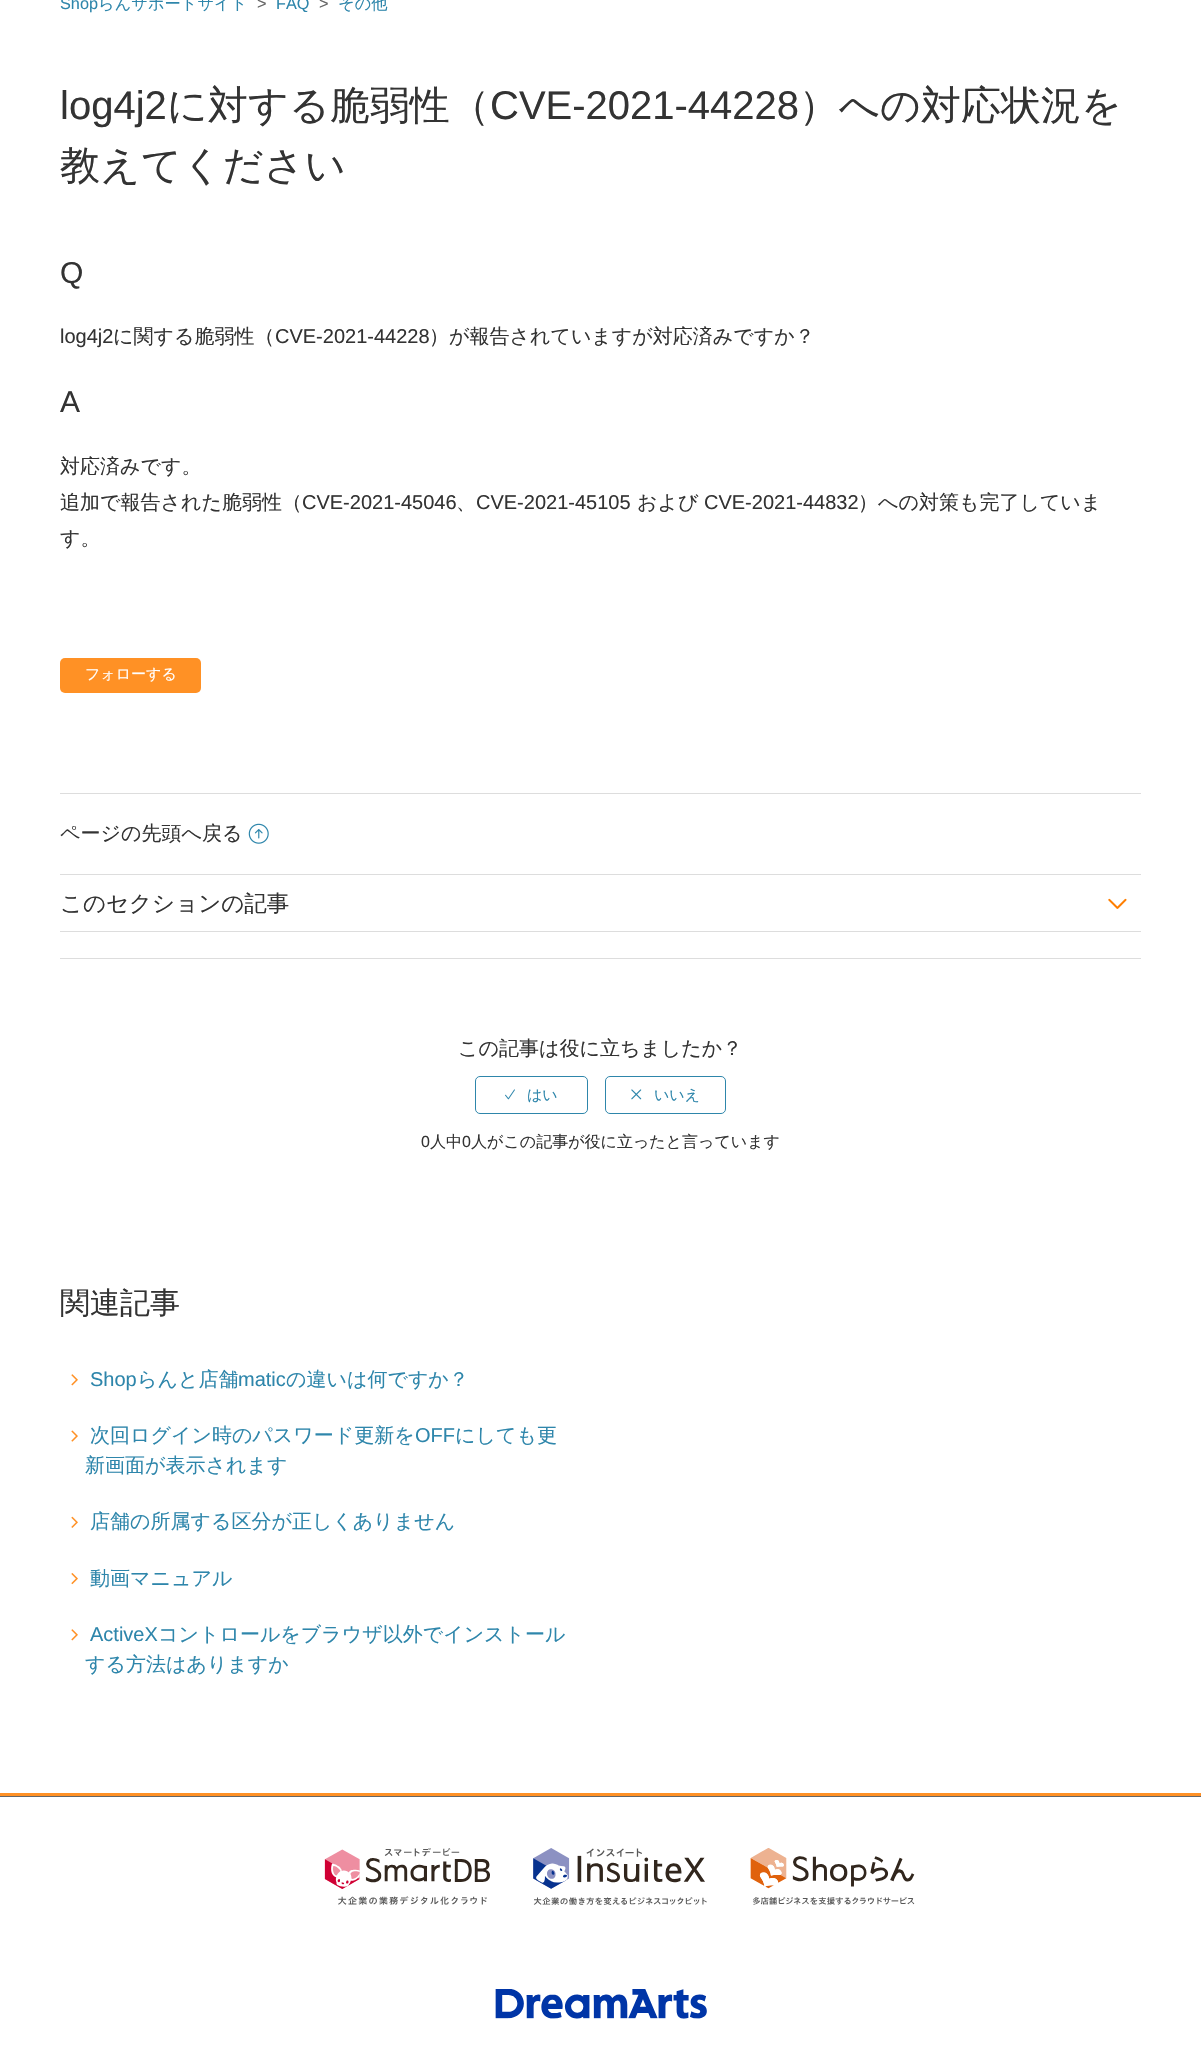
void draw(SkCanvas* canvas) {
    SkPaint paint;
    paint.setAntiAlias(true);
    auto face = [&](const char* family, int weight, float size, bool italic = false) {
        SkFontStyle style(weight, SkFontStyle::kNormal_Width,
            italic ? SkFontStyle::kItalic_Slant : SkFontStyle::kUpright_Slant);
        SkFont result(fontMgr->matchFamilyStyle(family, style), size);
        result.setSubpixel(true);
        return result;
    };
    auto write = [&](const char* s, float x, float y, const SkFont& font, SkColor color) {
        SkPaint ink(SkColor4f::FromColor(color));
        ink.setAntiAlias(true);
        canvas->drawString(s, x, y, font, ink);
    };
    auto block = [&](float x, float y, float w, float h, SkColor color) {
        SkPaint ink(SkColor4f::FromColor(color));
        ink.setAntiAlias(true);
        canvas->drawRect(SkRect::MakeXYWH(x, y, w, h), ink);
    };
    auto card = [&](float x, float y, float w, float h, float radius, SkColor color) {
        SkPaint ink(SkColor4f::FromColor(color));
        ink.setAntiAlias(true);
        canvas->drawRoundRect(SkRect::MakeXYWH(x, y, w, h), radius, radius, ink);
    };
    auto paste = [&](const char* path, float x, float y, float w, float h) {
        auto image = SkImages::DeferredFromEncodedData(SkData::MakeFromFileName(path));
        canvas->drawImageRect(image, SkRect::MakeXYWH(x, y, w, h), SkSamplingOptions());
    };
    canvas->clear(SK_ColorWHITE);
    auto kFont1 = face("Liberation Sans", 400, 16.25f);
    write("Shop", 60, 9, kFont1, SkColorSetRGB(46, 134, 171));
    auto kFont2 = face("WenQuanYi Zen Hei", 500, 16.25f);
    write("らんサポートサイト", 98, 9, kFont2, SkColorSetRGB(46, 134, 171));
    write(">", 257, 9, kFont1, SkColorSetRGB(102, 102, 102));
    write("FAQ", 276, 9, kFont1, SkColorSetRGB(46, 134, 171));
    write(">", 319, 9, kFont1, SkColorSetRGB(102, 102, 102));
    write("その他", 338, 9, kFont2, SkColorSetRGB(46, 134, 171));
    auto kFont3 = face("Liberation Sans", 400, 40);
    write("log4j2", 60, 119, kFont3, SkColorSetRGB(51, 51, 51));
    auto kFont4 = face("WenQuanYi Zen Hei", 500, 40);
    write("に対する脆弱性（", 167, 119, kFont4, SkColorSetRGB(51, 51, 51));
    write("CVE-2021-44228", 490, 119, kFont3, SkColorSetRGB(51, 51, 51));
    write("）への対応状況を", 799, 119, kFont4, SkColorSetRGB(51, 51, 51));
    write("教えてください", 60, 179, kFont4, SkColorSetRGB(51, 51, 51));
    auto kFont5 = face("Liberation Sans", 400, 30);
    write("Q", 60, 283, kFont5, SkColorSetRGB(51, 51, 51));
    auto kFont6 = face("Liberation Sans", 400, 20);
    write("log4j2", 60, 343, kFont6, SkColorSetRGB(51, 51, 51));
    auto kFont7 = face("WenQuanYi Zen Hei", 500, 20);
    write("に関する脆弱性（", 113, 343, kFont7, SkColorSetRGB(51, 51, 51));
    write("CVE-2021-44228", 275, 343, kFont6, SkColorSetRGB(51, 51, 51));
    write("）が報告されていますが対応済みですか？", 429, 343, kFont7, SkColorSetRGB(51, 51, 51));
    write("A", 60, 412, kFont5, SkColorSetRGB(51, 51, 51));
    write("対応済みです。", 60, 473, kFont7, SkColorSetRGB(51, 51, 51));
    write("追加で報告された脆弱性（", 60, 509, kFont7, SkColorSetRGB(51, 51, 51));
    write("CVE-2021-45046", 302, 509, kFont6, SkColorSetRGB(51, 51, 51));
    write("、", 456, 509, kFont7, SkColorSetRGB(51, 51, 51));
    write("CVE-2021-45105", 476, 509, kFont6, SkColorSetRGB(51, 51, 51));
    write("および", 637, 509, kFont7, SkColorSetRGB(51, 51, 51));
    write("CVE-2021-44832", 704, 509, kFont6, SkColorSetRGB(51, 51, 51));
    write("）への対策も完了していま", 858, 509, kFont7, SkColorSetRGB(51, 51, 51));
    write("す。", 60, 545, kFont7, SkColorSetRGB(51, 51, 51));
    card(60, 658, 141, 35, 5, SkColorSetRGB(255, 145, 37));
    auto kFont8 = face("WenQuanYi Zen Hei", 500, 15);
    write("フォローする", 85, 679, kFont8, SK_ColorWHITE);
    block(60, 793, 1081, 1, SkColorSetRGB(221, 221, 221));
    write("ページの先頭へ戻る", 60, 840, kFont7, SkColorSetRGB(51, 51, 51));
    paste("pic1.png", 248, 823, 21, 21);
    block(60, 874, 1081, 1, SkColorSetRGB(221, 221, 221));
    block(60, 931, 1081, 1, SkColorSetRGB(221, 221, 221));
    auto kFont9 = face("WenQuanYi Zen Hei", 500, 22.5f);
    write("このセクションの記事", 60, 911, kFont9, SkColorSetRGB(51, 51, 51));
    paste("pic2.png", 1108, 898, 19, 11);
    block(60, 958, 1081, 1, SkColorSetRGB(221, 221, 221));
    write("この記事は役に立ちましたか？", 458, 1055, kFont7, SkColorSetRGB(51, 51, 51));
    paint.setStyle(SkPaint::kStroke_Style);
    paint.setStrokeWidth(1);
    paint.setColor(SkColorSetRGB(46, 134, 171));
    canvas->drawRoundRect(SkRect::MakeXYWH(475.5f, 1076.5f, 112, 37), 4.5f, 4.5f, paint);
    paste("pic3.png", 505, 1089, 10, 11);
    write("はい", 527, 1100, kFont8, SkColorSetRGB(46, 134, 171));
    canvas->drawRoundRect(SkRect::MakeXYWH(605.5f, 1076.5f, 120, 37), 4.5f, 4.5f, paint);
    paste("pic4.png", 631, 1089, 11, 11);
    write("いいえ", 654, 1100, kFont8, SkColorSetRGB(46, 134, 171));
    auto kFont10 = face("Liberation Sans", 400, 16);
    write("0", 421, 1147, kFont10, SkColorSetRGB(51, 51, 51));
    auto kFont11 = face("WenQuanYi Zen Hei", 500, 16);
    write("人中", 430, 1147, kFont11, SkColorSetRGB(51, 51, 51));
    write("0", 462, 1147, kFont10, SkColorSetRGB(51, 51, 51));
    write("人がこの記事が役に立ったと言っています", 471, 1147, kFont11, SkColorSetRGB(51, 51, 51));
    auto kFont12 = face("WenQuanYi Zen Hei", 500, 30);
    write("関連記事", 60, 1313, kFont12, SkColorSetRGB(51, 51, 51));
    paste("pic5.png", 71, 1374, 7, 12);
    write("Shop", 90, 1386, kFont6, SkColorSetRGB(46, 134, 171));
    write("らんと店舗", 137, 1386, kFont7, SkColorSetRGB(46, 134, 171));
    write("matic", 238, 1386, kFont6, SkColorSetRGB(46, 134, 171));
    write("の違いは何ですか？", 286, 1386, kFont7, SkColorSetRGB(46, 134, 171));
    paste("pic6.png", 71, 1430, 7, 12);
    write("次回ログイン時のパスワード更新を", 90, 1442, kFont7, SkColorSetRGB(46, 134, 171));
    write("OFF", 415, 1442, kFont6, SkColorSetRGB(46, 134, 171));
    write("にしても更", 455, 1442, kFont7, SkColorSetRGB(46, 134, 171));
    write("新画面が表示されます", 85, 1472, kFont7, SkColorSetRGB(46, 134, 171));
    paste("pic7.png", 71, 1516, 7, 12);
    write("店舗の所属する区分が正しくありません", 90, 1528, kFont7, SkColorSetRGB(46, 134, 171));
    paste("pic8.png", 71, 1573, 7, 12);
    write("動画マニュアル", 90, 1585, kFont7, SkColorSetRGB(46, 134, 171));
    paste("pic5.png", 71, 1629, 7, 12);
    write("ActiveX", 90, 1641, kFont6, SkColorSetRGB(46, 134, 171));
    write("コントロールをブラウザ以外でインストール", 158, 1641, kFont7, SkColorSetRGB(46, 134, 171));
    write("する方法はありますか", 85, 1671, kFont7, SkColorSetRGB(46, 134, 171));
    block(0, 1793, 1201, 3, SkColorSetRGB(255, 145, 37));
    block(0, 1796, 1201, 1, SkColorSetRGB(102, 102, 102));
    paste("pic9.png", 324, 1848, 166, 57);
    paste("pic10.png", 533, 1848, 174, 57);
    paste("pic11.png", 750, 1848, 165, 57);
    paste("pic12.png", 495, 1989, 212, 30);
}
